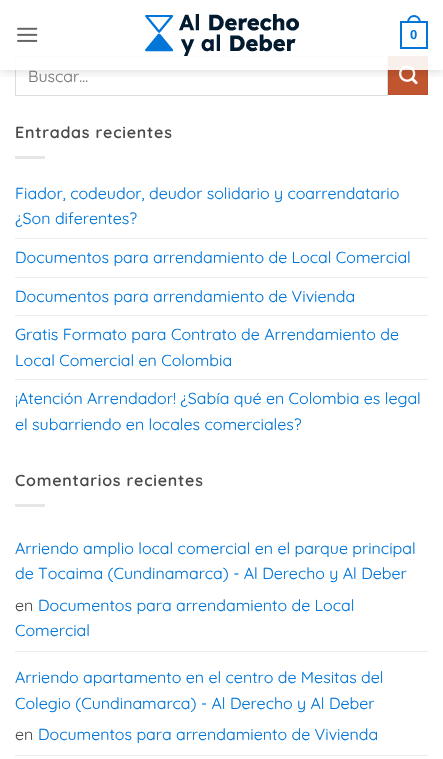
void draw(SkCanvas* canvas) {
    SkPaint paint;
    paint.setAntiAlias(true);
    auto face = [&](const char* family, int weight, float size, bool italic = false) {
        SkFontStyle style(weight, SkFontStyle::kNormal_Width,
            italic ? SkFontStyle::kItalic_Slant : SkFontStyle::kUpright_Slant);
        SkFont result(fontMgr->matchFamilyStyle(family, style), size);
        result.setSubpixel(true);
        return result;
    };
    auto write = [&](const char* s, float x, float y, const SkFont& font, SkColor color) {
        SkPaint ink(SkColor4f::FromColor(color));
        ink.setAntiAlias(true);
        canvas->drawString(s, x, y, font, ink);
    };
    auto writeSpaced = [&](const char* s, float x, float y, const SkFont& font, const SkPaint& ink, float letter, float word) {
        std::vector<SkGlyphID> glyphs(font.countText(s, strlen(s), SkTextEncoding::kUTF8));
        std::vector<float> xs(glyphs.size());
        font.textToGlyphs(s, strlen(s), SkTextEncoding::kUTF8, glyphs);
        font.getXPos(glyphs, xs, x);
        float extra = 0;
        for (size_t i = 0; i < glyphs.size(); i++) {
            xs[i] += extra;
            extra += letter + word * (glyphs[i] == font.unicharToGlyph(' '));
        }
        canvas->drawTextBlob(SkTextBlob::MakeFromPosHGlyphs(glyphs, xs, y, font), 0, 0, ink);
    };
    auto block = [&](float x, float y, float w, float h, SkColor color) {
        SkPaint ink(SkColor4f::FromColor(color));
        ink.setAntiAlias(true);
        canvas->drawRect(SkRect::MakeXYWH(x, y, w, h), ink);
    };
    auto paste = [&](const char* path, float x, float y, float w, float h) {
        auto image = SkImages::DeferredFromEncodedData(SkData::MakeFromFileName(path));
        canvas->drawImageRect(image, SkRect::MakeXYWH(x, y, w, h), SkSamplingOptions());
    };
    canvas->clear(SK_ColorWHITE);
    paint.setStyle(SkPaint::kStroke_Style);
    paint.setStrokeWidth(1);
    paint.setColor(SkColorSetRGB(221, 221, 221));
    canvas->drawRect(SkRect::MakeXYWH(15.5f, 56.5f, 372, 39), paint);
    paint.setStyle(SkPaint::kFill_Style);
    paint.setColor(SkColorSetRGB(192, 85, 48));
    canvas->drawRect(SkRect::MakeXYWH(388.5f, 56.5f, 39, 38), paint);
    paint.setStyle(SkPaint::kStroke_Style);
    paint.setColor(SkColorSetRGB(182, 81, 46));
    canvas->drawRect(SkRect::MakeXYWH(388.5f, 56.5f, 39, 38), paint);
    paste("pic3.png", 399, 65, 19, 20);
    canvas->save();
    canvas->clipRect(SkRect::MakeXYWH(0, 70, 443, 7));
    paint.setStyle(SkPaint::kFill_Style);
    paint.setColor(SkColorSetARGB(38, 0, 0, 0));
    paint.setMaskFilter(SkMaskFilter::MakeBlur(kNormal_SkBlurStyle, 5));
    canvas->drawRect(SkRect::MakeXYWH(1, 1, 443, 70), paint);
    paint.setMaskFilter(nullptr);
    canvas->restore();
    paste("pic1.png", 17, 27, 21, 15);
    paste("pic2.png", 145, 14, 154, 42);
    paint.setStyle(SkPaint::kStroke_Style);
    paint.setStrokeWidth(2);
    paint.setColor(SkColorSetRGB(1, 118, 216));
    canvas->drawRect(SkRect::MakeXYWH(401, 22, 26, 26), paint);
    paint.setStyle(SkPaint::kFill_Style);
    canvas->drawPath(SkPathBuilder(SkPathFillType::kEvenOdd).moveTo(414, 15).cubicTo(418.5f, 15, 421, 19, 421, 23).lineTo(407, 23).cubicTo(407, 19, 409.5f, 15, 414, 15).close().moveTo(414, 17).cubicTo(417.5f, 17, 419, 20, 419, 23).lineTo(409, 23).cubicTo(409, 20, 410.5f, 17, 414, 17).close().detach(), paint);
    auto kFont1 = face("Liberation Sans", 700, 13);
    write("0", 410, 39, kFont1, SkColorSetRGB(1, 118, 216));
    block(15, 56, 413, 14, SkColorSetARGB(230, 255, 255, 255));
    auto kFont2 = face("Quicksand", 400, 16);
    write("Buscar…", 28, 82, kFont2, SkColorSetRGB(117, 117, 117));
    auto kFont3 = face("Quicksand", 600, 16);
    paint.setColor(SkColorSetRGB(74, 74, 74));
    writeSpaced("Entradas recientes", 15, 138, kFont3, paint, 0.8f, 0);
    block(15, 156, 30, 3, SkColorSetRGB(230, 230, 230));
    write("Fiador, codeudor, deudor solidario y coarrendatario", 15, 199, kFont2, SkColorSetRGB(1, 118, 216));
    write("¿Son diferentes?", 15, 224, kFont2, SkColorSetRGB(1, 118, 216));
    block(15, 238, 413, 1, SkColorSetRGB(236, 236, 236));
    write("Documentos para arrendamiento de Local Comercial", 15, 263, kFont2, SkColorSetRGB(1, 118, 216));
    block(15, 277, 413, 1, SkColorSetRGB(236, 236, 236));
    write("Documentos para arrendamiento de Vivienda", 15, 302, kFont2, SkColorSetRGB(1, 118, 216));
    block(15, 315, 413, 1, SkColorSetRGB(236, 236, 236));
    write("Gratis Formato para Contrato de Arrendamiento de", 15, 340, kFont2, SkColorSetRGB(1, 118, 216));
    write("Local Comercial en Colombia", 15, 366, kFont2, SkColorSetRGB(1, 118, 216));
    block(15, 379, 413, 1, SkColorSetRGB(236, 236, 236));
    write("¡Atención Arrendador! ¿Sabía qué en Colombia es legal", 15, 404, kFont2, SkColorSetRGB(1, 118, 216));
    write("el subarriendo en locales comerciales?", 15, 430, kFont2, SkColorSetRGB(1, 118, 216));
    writeSpaced("Comentarios recientes", 15, 486, kFont3, paint, 0.8f, 0);
    block(15, 504, 30, 3, SkColorSetRGB(230, 230, 230));
    write("Arriendo amplio local comercial en el parque principal", 15, 554, kFont2, SkColorSetRGB(1, 118, 216));
    write("de Tocaima (Cundinamarca) - Al Derecho y Al Deber", 15, 579, kFont2, SkColorSetRGB(1, 118, 216));
    write("en", 15, 611, kFont2, SkColorSetRGB(74, 74, 74));
    write("Documentos para arrendamiento de Local", 38, 611, kFont2, SkColorSetRGB(1, 118, 216));
    write("Comercial", 15, 636, kFont2, SkColorSetRGB(1, 118, 216));
    block(15, 651, 413, 1, SkColorSetRGB(236, 236, 236));
    write("Arriendo apartamento en el centro de Mesitas del", 15, 683, kFont2, SkColorSetRGB(1, 118, 216));
    write("Colegio (Cundinamarca) - Al Derecho y Al Deber", 15, 709, kFont2, SkColorSetRGB(1, 118, 216));
    write("en", 15, 740, kFont2, SkColorSetRGB(74, 74, 74));
    write("Documentos para arrendamiento de Vivienda", 38, 740, kFont2, SkColorSetRGB(1, 118, 216));
    block(15, 755, 413, 1, SkColorSetRGB(236, 236, 236));
}
